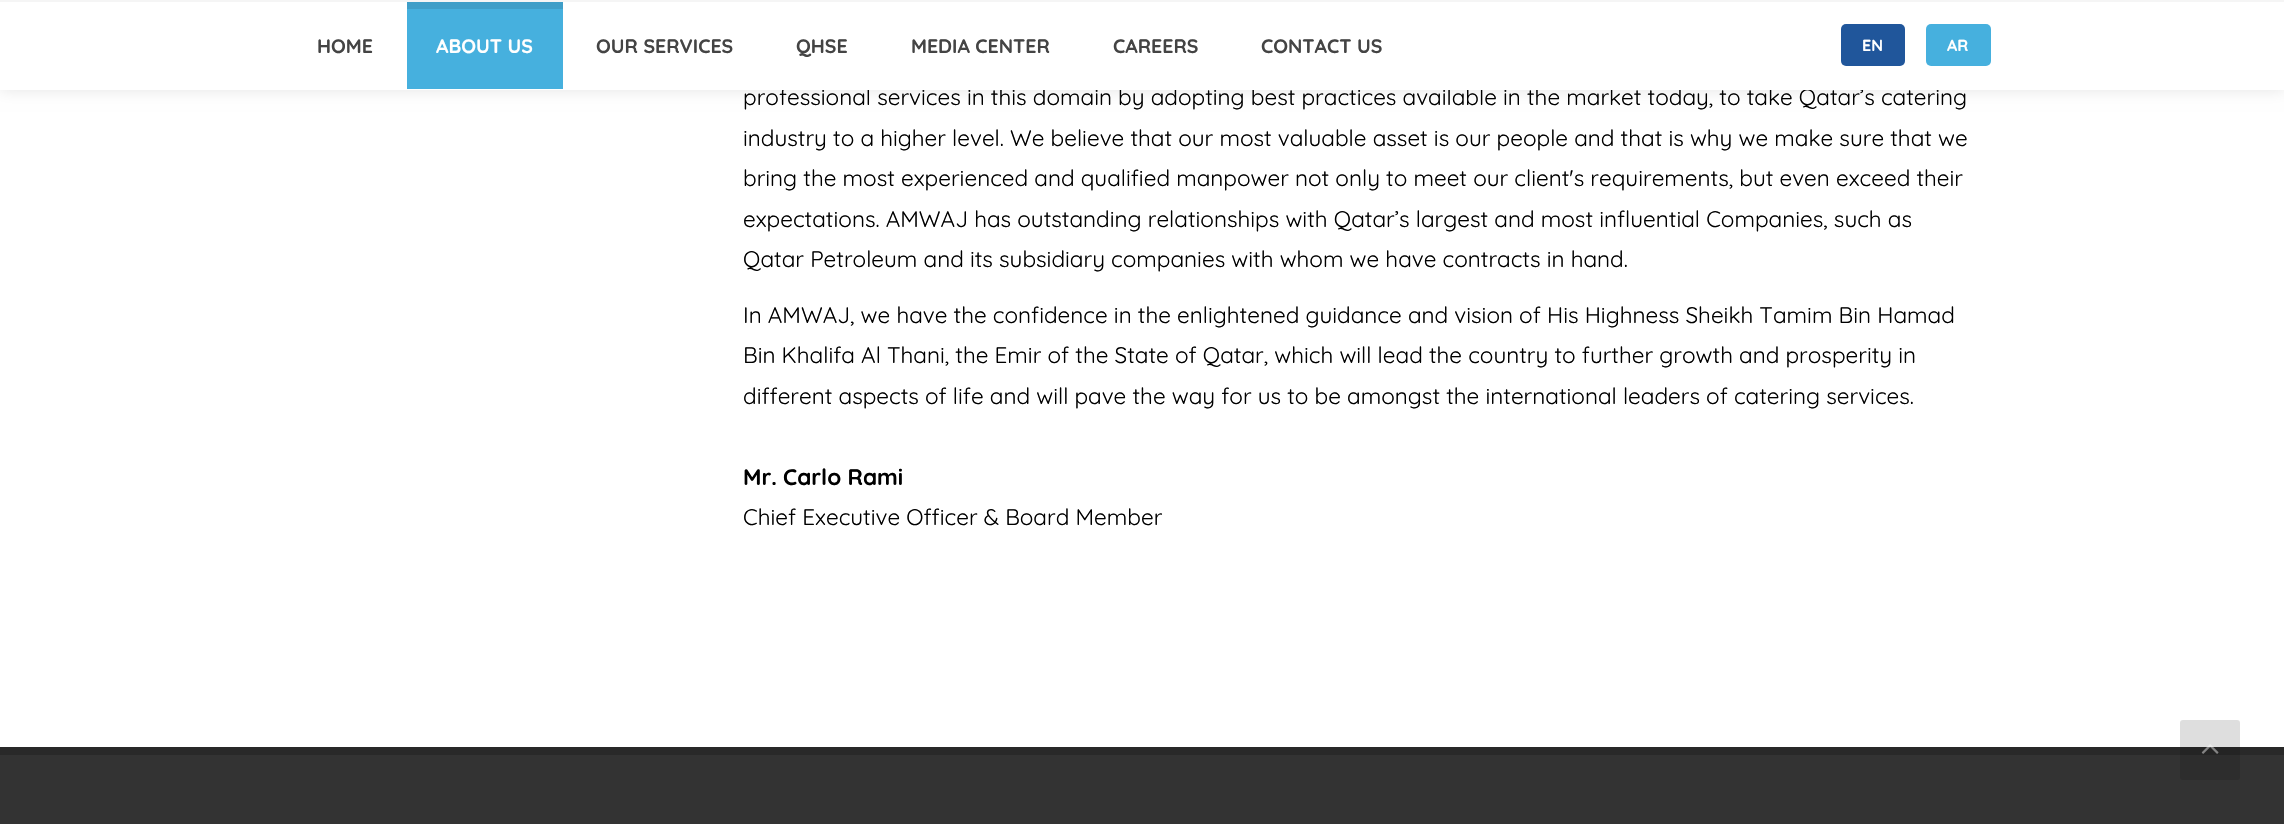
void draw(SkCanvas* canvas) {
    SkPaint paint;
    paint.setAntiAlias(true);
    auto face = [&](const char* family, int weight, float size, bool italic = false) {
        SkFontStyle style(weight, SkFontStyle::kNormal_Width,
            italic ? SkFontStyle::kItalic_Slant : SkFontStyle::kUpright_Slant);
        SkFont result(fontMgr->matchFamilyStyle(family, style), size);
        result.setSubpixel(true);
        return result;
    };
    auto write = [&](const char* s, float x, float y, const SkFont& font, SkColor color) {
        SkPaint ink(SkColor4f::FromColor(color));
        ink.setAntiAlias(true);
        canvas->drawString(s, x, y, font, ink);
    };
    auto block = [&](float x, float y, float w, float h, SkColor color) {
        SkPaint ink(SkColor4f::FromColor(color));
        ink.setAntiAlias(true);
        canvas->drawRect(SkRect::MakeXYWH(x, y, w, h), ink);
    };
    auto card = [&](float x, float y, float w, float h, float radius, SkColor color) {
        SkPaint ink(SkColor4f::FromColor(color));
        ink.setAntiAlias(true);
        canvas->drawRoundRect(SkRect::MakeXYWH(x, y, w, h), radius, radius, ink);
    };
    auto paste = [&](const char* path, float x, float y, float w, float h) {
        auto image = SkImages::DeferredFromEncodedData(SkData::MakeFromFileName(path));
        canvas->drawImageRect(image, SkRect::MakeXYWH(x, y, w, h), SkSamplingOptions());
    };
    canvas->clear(SK_ColorWHITE);
    paint.setColor(SkColorSetARGB(26, 0, 0, 0));
    paint.setMaskFilter(SkMaskFilter::MakeBlur(kNormal_SkBlurStyle, 7.5f));
    canvas->drawRect(SkRect::MakeXYWH(0, 0, 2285, 90), paint);
    paint.setMaskFilter(nullptr);
    auto kFont1 = face("Quicksand", 400, 22.5f);
    write("professional services in this domain by adopting best practices available in the market today, to take Qatar’s catering", 743, 105, kFont1, SK_ColorBLACK);
    block(0, 2, 2284, 88, SK_ColorWHITE);
    block(0, 0, 2284, 2, SkColorSetRGB(245, 245, 245));
    auto kFont2 = face("Quicksand", 700, 19.5f);
    write("HOME", 317, 53, kFont2, SkColorSetRGB(68, 68, 68));
    block(407, 9, 156, 80, SkColorSetRGB(70, 176, 222));
    block(407, 2, 156, 7, SkColorSetRGB(63, 158, 200));
    write("ABOUT US", 436, 53, kFont2, SK_ColorWHITE);
    write("OUR SERVICES", 596, 53, kFont2, SkColorSetRGB(68, 68, 68));
    write("QHSE", 796, 53, kFont2, SkColorSetRGB(68, 68, 68));
    write("MEDIA CENTER", 911, 53, kFont2, SkColorSetRGB(68, 68, 68));
    write("CAREERS", 1113, 53, kFont2, SkColorSetRGB(68, 68, 68));
    write("CONTACT US", 1261, 53, kFont2, SkColorSetRGB(68, 68, 68));
    card(1841, 24, 64, 42, 5, SkColorSetRGB(32, 86, 155));
    auto kFont3 = face("Quicksand", 700, 16);
    write("EN", 1862, 51, kFont3, SK_ColorWHITE);
    card(1926, 24, 65, 42, 5, SkColorSetRGB(70, 176, 222));
    write("AR", 1947, 51, kFont3, SK_ColorWHITE);
    write("industry to a higher level. We believe that our most valuable asset is our people and that is why we make sure that we", 743, 146, kFont1, SK_ColorBLACK);
    write("bring the most experienced and qualified manpower not only to meet our client's requirements, but even exceed their", 743, 186, kFont1, SK_ColorBLACK);
    write("expectations. AMWAJ has outstanding relationships with Qatar’s largest and most influential Companies, such as", 743, 227, kFont1, SK_ColorBLACK);
    write("Qatar Petroleum and its subsidiary companies with whom we have contracts in hand.", 743, 267, kFont1, SK_ColorBLACK);
    write("In AMWAJ, we have the confidence in the enlightened guidance and vision of His Highness Sheikh Tamim Bin Hamad", 743, 323, kFont1, SK_ColorBLACK);
    write("Bin Khalifa Al Thani, the Emir of the State of Qatar, which will lead the country to further growth and prosperity in", 743, 363, kFont1, SK_ColorBLACK);
    write("different aspects of life and will pave the way for us to be amongst the international leaders of catering services.", 743, 404, kFont1, SK_ColorBLACK);
    auto kFont4 = face("Quicksand", 700, 22.5f);
    write("Mr. Carlo Rami", 743, 485, kFont4, SK_ColorBLACK);
    write("Chief Executive Officer & Board Member", 743, 525, kFont1, SK_ColorBLACK);
    block(0, 755, 2284, 69, SkColorSetRGB(51, 51, 51));
    block(0, 747, 2284, 8, SkColorSetRGB(41, 41, 41));
    card(2180, 720, 60, 60, 3, SkColorSetARGB(33, 0, 0, 0));
    paste("pic1.png", 2201, 744, 18, 10);
}
